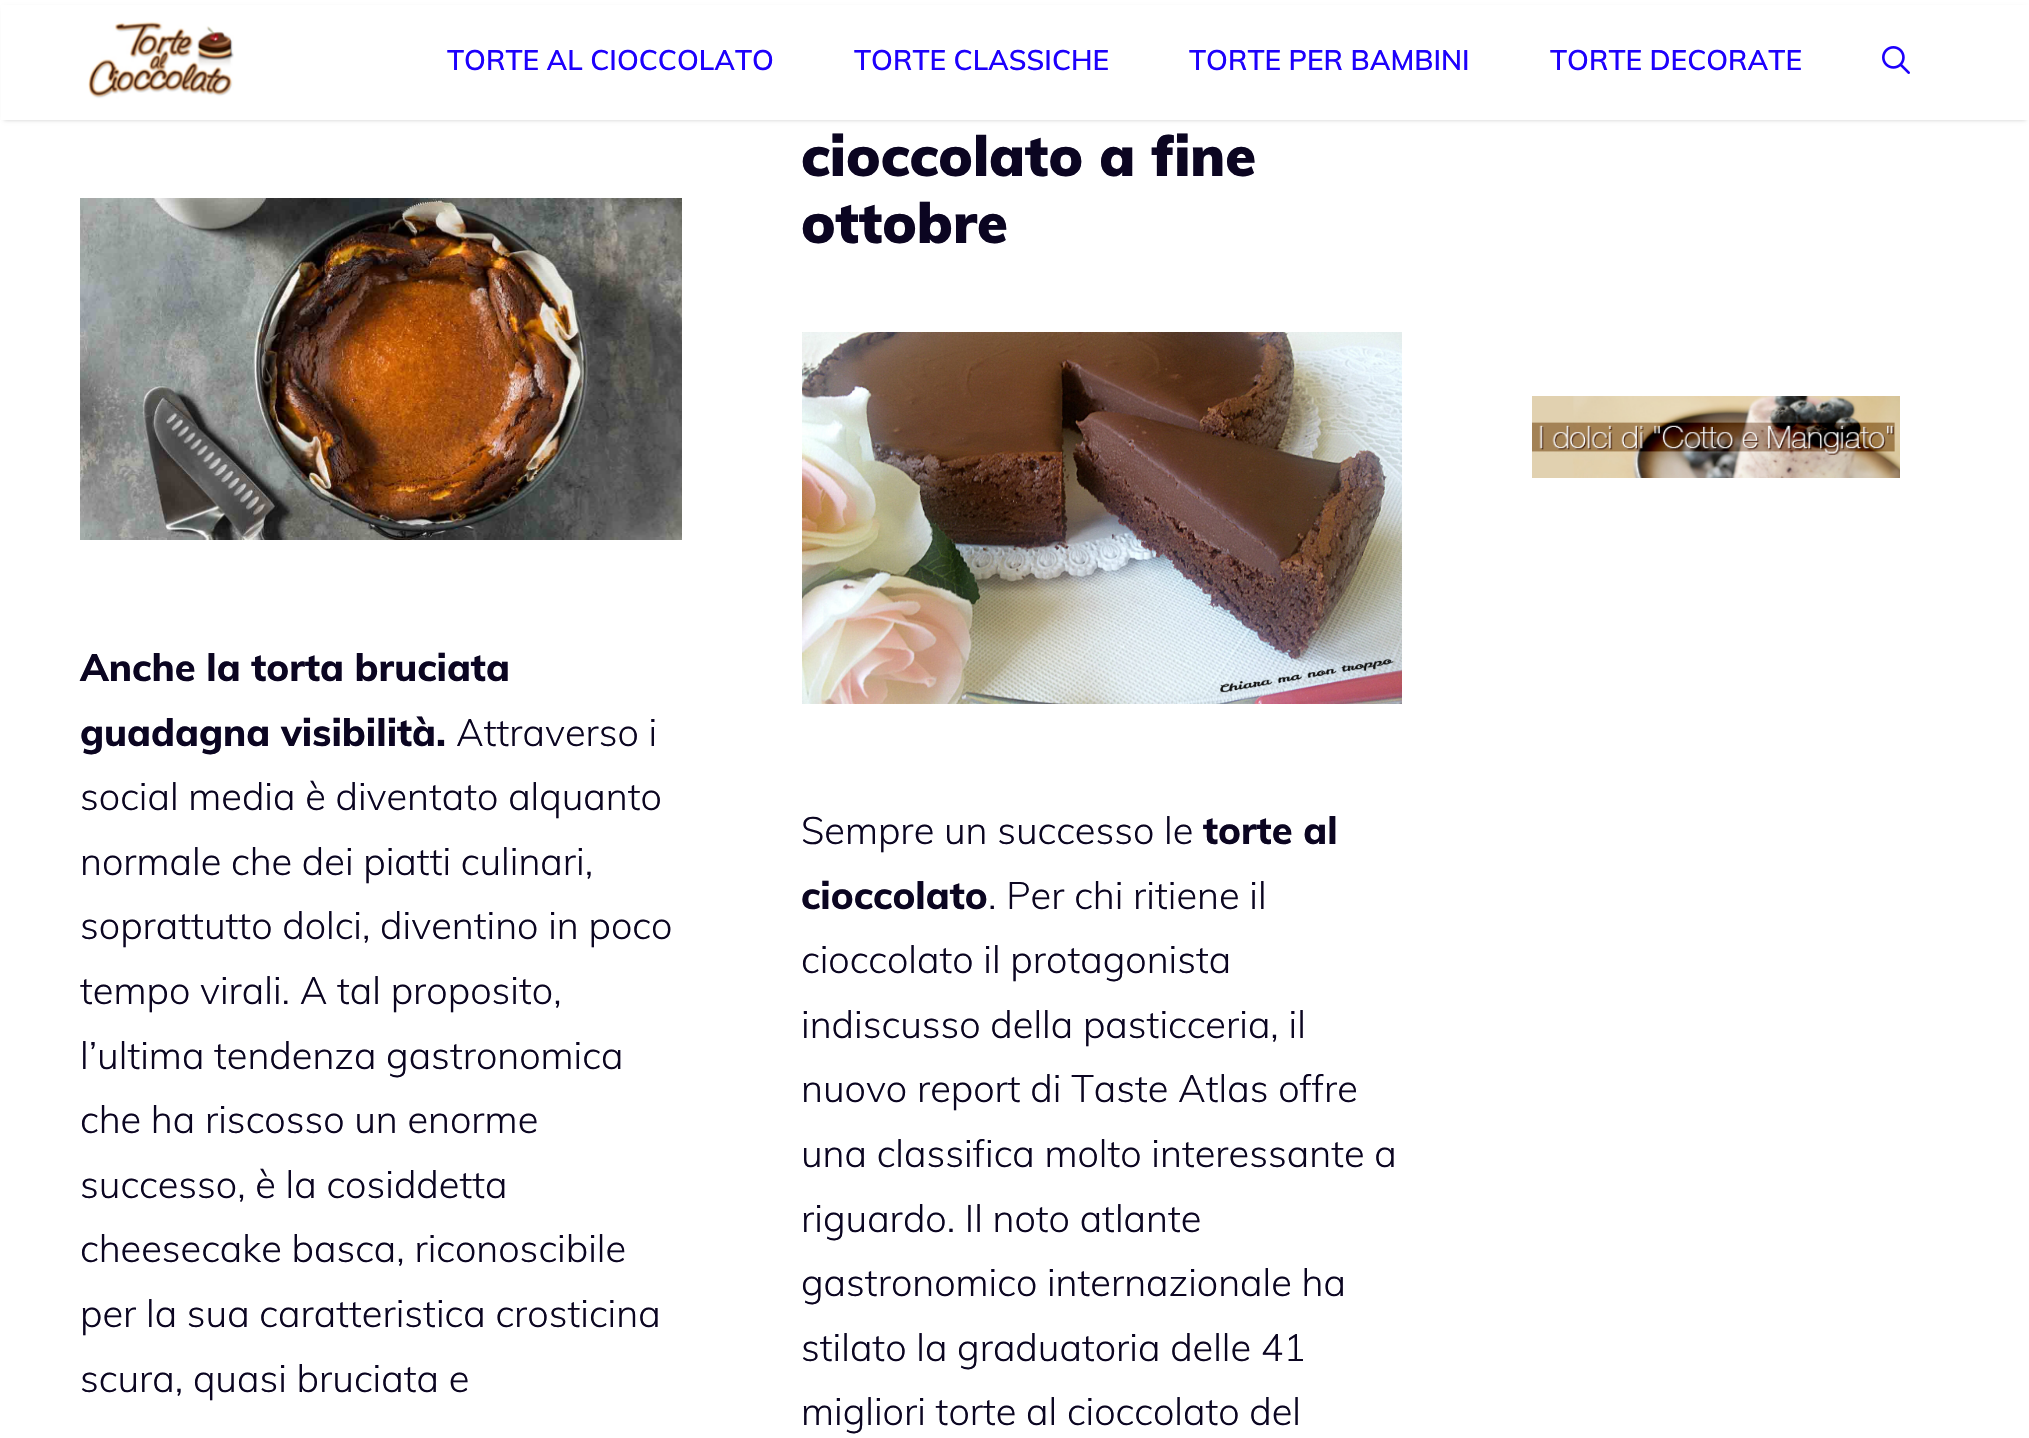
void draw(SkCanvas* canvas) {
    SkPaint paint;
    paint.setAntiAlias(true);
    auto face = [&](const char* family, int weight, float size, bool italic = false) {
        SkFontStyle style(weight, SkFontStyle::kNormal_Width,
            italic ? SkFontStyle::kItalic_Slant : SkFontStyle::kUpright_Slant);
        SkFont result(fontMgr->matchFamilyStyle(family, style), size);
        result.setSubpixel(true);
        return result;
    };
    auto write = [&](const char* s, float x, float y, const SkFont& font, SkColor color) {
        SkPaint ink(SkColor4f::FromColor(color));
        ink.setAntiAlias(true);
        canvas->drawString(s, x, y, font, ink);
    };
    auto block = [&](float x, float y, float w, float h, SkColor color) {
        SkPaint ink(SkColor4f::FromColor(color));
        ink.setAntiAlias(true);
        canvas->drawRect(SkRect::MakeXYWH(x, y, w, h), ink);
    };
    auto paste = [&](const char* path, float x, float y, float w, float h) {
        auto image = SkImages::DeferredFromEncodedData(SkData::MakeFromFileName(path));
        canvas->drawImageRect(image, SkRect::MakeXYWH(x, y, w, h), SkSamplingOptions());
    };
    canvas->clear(SK_ColorWHITE);
    paint.setColor(SkColorSetARGB(51, 0, 0, 0));
    paint.setMaskFilter(SkMaskFilter::MakeBlur(kNormal_SkBlurStyle, 2));
    canvas->drawRect(SkRect::MakeXYWH(4, 8, 2022, 112), paint);
    paint.setMaskFilter(nullptr);
    block(1, 5, 2028, 115, SK_ColorWHITE);
    paste("pic1.png", 88, 21, 146, 78);
    auto kFont1 = face("Muli", 600, 28);
    write("TORTE AL CIOCCOLATO", 447, 70, kFont1, SkColorSetRGB(29, 0, 252));
    write("TORTE CLASSICHE", 854, 70, kFont1, SkColorSetRGB(29, 0, 252));
    write("TORTE PER BAMBINI", 1189, 70, kFont1, SkColorSetRGB(29, 0, 252));
    write("TORTE DECORATE", 1550, 70, kFont1, SkColorSetRGB(29, 0, 252));
    paste("pic2.png", 1882, 46, 28, 28);
    paste("pic3.png", 80, 198, 602, 342);
    auto kFont2 = face("Muli", 800, 38);
    write("Anche la torta bruciata", 80, 681, kFont2, SkColorSetRGB(11, 5, 33));
    write("guadagna visibilità.", 80, 746, kFont2, SkColorSetRGB(11, 5, 33));
    auto kFont3 = face("Muli", 300, 38);
    write("Attraverso i", 456, 746, kFont3, SkColorSetRGB(11, 5, 33));
    write("social media è diventato alquanto", 80, 810, kFont3, SkColorSetRGB(11, 5, 33));
    write("normale che dei piatti culinari,", 80, 875, kFont3, SkColorSetRGB(11, 5, 33));
    write("soprattutto dolci, diventino in poco", 80, 939, kFont3, SkColorSetRGB(11, 5, 33));
    write("tempo virali. A tal proposito,", 80, 1004, kFont3, SkColorSetRGB(11, 5, 33));
    write("l’ultima tendenza gastronomica", 80, 1069, kFont3, SkColorSetRGB(11, 5, 33));
    write("che ha riscosso un enorme", 80, 1133, kFont3, SkColorSetRGB(11, 5, 33));
    write("successo, è la cosiddetta", 80, 1198, kFont3, SkColorSetRGB(11, 5, 33));
    write("cheesecake basca, riconoscibile", 80, 1262, kFont3, SkColorSetRGB(11, 5, 33));
    write("per la sua caratteristica crosticina", 80, 1327, kFont3, SkColorSetRGB(11, 5, 33));
    write("scura, quasi bruciata e", 80, 1392, kFont3, SkColorSetRGB(11, 5, 33));
    auto kFont4 = face("Muli", 900, 56);
    write("cioccolato a fine", 801, 176, kFont4, SkColorSetRGB(11, 5, 33));
    write("ottobre", 801, 243, kFont4, SkColorSetRGB(11, 5, 33));
    paste("pic4.png", 802, 332, 600, 372);
    write("Sempre un successo le", 801, 844, kFont3, SkColorSetRGB(11, 5, 33));
    write("torte al", 1203, 844, kFont2, SkColorSetRGB(11, 5, 33));
    write("cioccolato", 801, 909, kFont2, SkColorSetRGB(11, 5, 33));
    write(". Per chi ritiene il", 988, 909, kFont3, SkColorSetRGB(11, 5, 33));
    write("cioccolato il protagonista", 801, 973, kFont3, SkColorSetRGB(11, 5, 33));
    write("indiscusso della pasticceria, il", 801, 1038, kFont3, SkColorSetRGB(11, 5, 33));
    write("nuovo report di Taste Atlas offre", 801, 1102, kFont3, SkColorSetRGB(11, 5, 33));
    write("una classifica molto interessante a", 801, 1167, kFont3, SkColorSetRGB(11, 5, 33));
    write("riguardo. Il noto atlante", 801, 1232, kFont3, SkColorSetRGB(11, 5, 33));
    write("gastronomico internazionale ha", 801, 1296, kFont3, SkColorSetRGB(11, 5, 33));
    write("stilato la graduatoria delle 41", 801, 1361, kFont3, SkColorSetRGB(11, 5, 33));
    write("migliori torte al cioccolato del", 801, 1425, kFont3, SkColorSetRGB(11, 5, 33));
    paste("pic5.png", 1532, 396, 368, 82);
}
